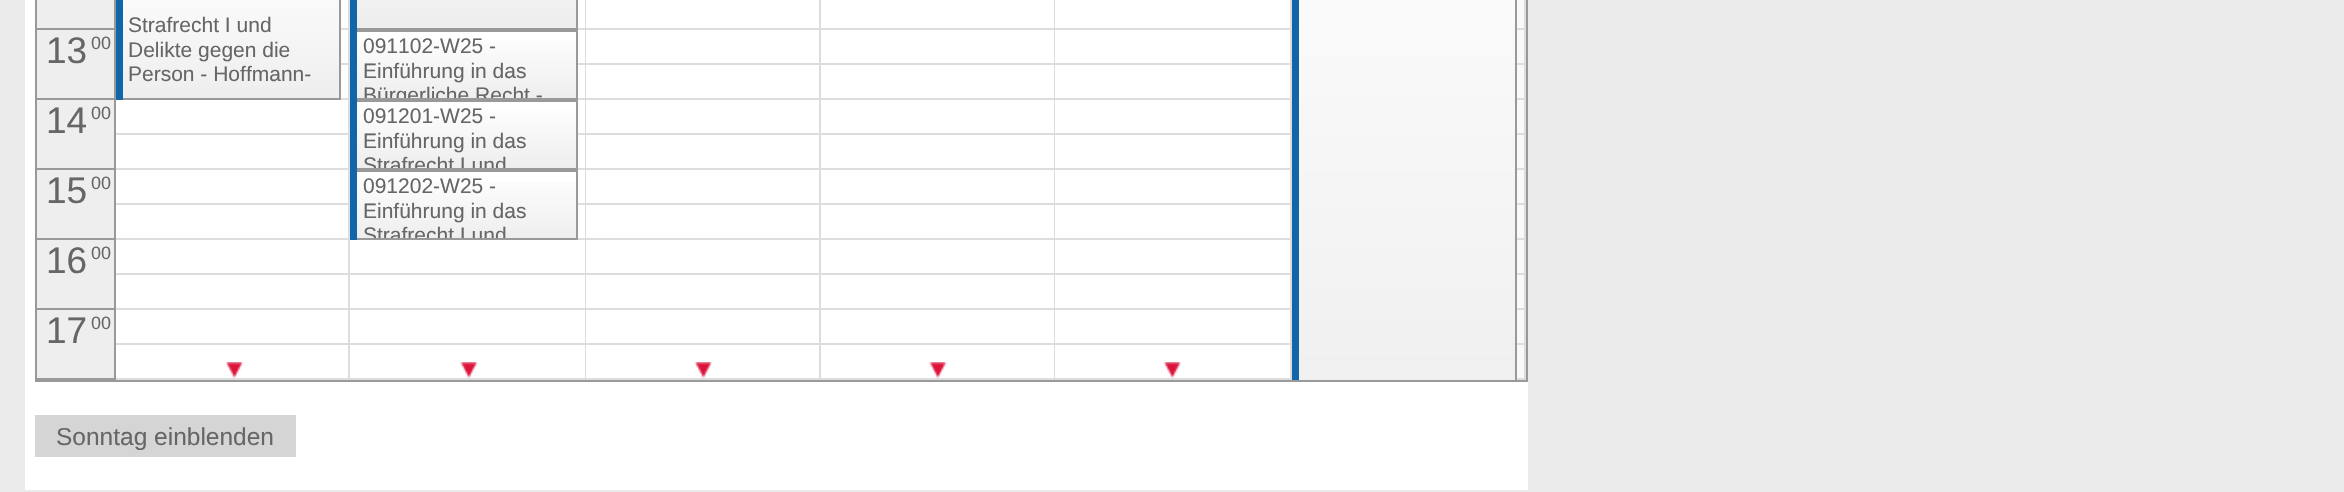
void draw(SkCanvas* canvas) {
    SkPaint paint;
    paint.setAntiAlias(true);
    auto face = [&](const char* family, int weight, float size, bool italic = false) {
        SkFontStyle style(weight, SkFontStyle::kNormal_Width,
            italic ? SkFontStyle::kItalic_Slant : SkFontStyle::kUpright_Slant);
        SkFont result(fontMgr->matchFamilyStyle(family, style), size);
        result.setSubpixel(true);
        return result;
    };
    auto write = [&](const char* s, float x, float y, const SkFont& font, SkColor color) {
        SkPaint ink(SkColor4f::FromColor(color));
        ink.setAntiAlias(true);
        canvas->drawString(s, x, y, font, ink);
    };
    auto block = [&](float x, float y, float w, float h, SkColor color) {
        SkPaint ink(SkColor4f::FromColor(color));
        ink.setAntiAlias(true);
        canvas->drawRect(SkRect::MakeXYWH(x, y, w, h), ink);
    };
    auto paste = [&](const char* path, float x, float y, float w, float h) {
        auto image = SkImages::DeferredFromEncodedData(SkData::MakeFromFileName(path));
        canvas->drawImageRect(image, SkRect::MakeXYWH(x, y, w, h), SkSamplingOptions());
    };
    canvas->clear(SkColorSetRGB(235, 235, 235));
    block(25, 0, 1503, 490, SK_ColorWHITE);
    paint.setStyle(SkPaint::kStroke_Style);
    paint.setStrokeWidth(2);
    paint.setColor(SkColorSetRGB(153, 153, 153));
    canvas->drawRect(SkRect::MakeXYWH(36, -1, 1491, 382), paint);
    block(37, 0, 77, 28, SkColorSetRGB(238, 238, 238));
    block(114, 0, 2, 380, SkColorSetRGB(153, 153, 153));
    block(37, 28, 79, 2, SkColorSetRGB(153, 153, 153));
    block(37, 30, 77, 68, SkColorSetRGB(238, 238, 238));
    block(37, 98, 79, 2, SkColorSetRGB(153, 153, 153));
    auto kFont1 = face("Liberation Sans", 400, 37);
    write("13", 46, 63, kFont1, SkColorSetRGB(102, 102, 102));
    auto kFont2 = face("Liberation Sans", 400, 18);
    write("00", 91, 49, kFont2, SkColorSetRGB(102, 102, 102));
    block(37, 100, 77, 68, SkColorSetRGB(238, 238, 238));
    block(37, 168, 79, 2, SkColorSetRGB(153, 153, 153));
    write("14", 46, 133, kFont1, SkColorSetRGB(102, 102, 102));
    write("00", 91, 119, kFont2, SkColorSetRGB(102, 102, 102));
    block(37, 170, 77, 68, SkColorSetRGB(238, 238, 238));
    block(37, 238, 79, 2, SkColorSetRGB(153, 153, 153));
    write("15", 46, 203, kFont1, SkColorSetRGB(102, 102, 102));
    write("00", 91, 189, kFont2, SkColorSetRGB(102, 102, 102));
    block(37, 240, 77, 68, SkColorSetRGB(238, 238, 238));
    block(37, 308, 79, 2, SkColorSetRGB(153, 153, 153));
    write("16", 46, 273, kFont1, SkColorSetRGB(102, 102, 102));
    write("00", 91, 259, kFont2, SkColorSetRGB(102, 102, 102));
    block(37, 310, 77, 68, SkColorSetRGB(238, 238, 238));
    block(37, 378, 79, 2, SkColorSetRGB(153, 153, 153));
    write("17", 46, 343, kFont1, SkColorSetRGB(102, 102, 102));
    write("00", 91, 329, kFont2, SkColorSetRGB(102, 102, 102));
    block(348, 0, 2, 380, SkColorSetRGB(221, 221, 221));
    block(341, 28, 9, 2, SkColorSetRGB(221, 221, 221));
    block(585, 0, 1, 380, SkColorSetRGB(221, 221, 221));
    block(578, 28, 8, 2, SkColorSetRGB(221, 221, 221));
    block(819, 0, 2, 380, SkColorSetRGB(221, 221, 221));
    block(586, 28, 235, 2, SkColorSetRGB(221, 221, 221));
    block(1054, 0, 1, 380, SkColorSetRGB(221, 221, 221));
    block(821, 28, 234, 2, SkColorSetRGB(221, 221, 221));
    block(1290, 0, 2, 380, SkColorSetRGB(221, 221, 221));
    block(1055, 28, 237, 2, SkColorSetRGB(221, 221, 221));
    block(1517, 0, 7, 28, SkColorSetRGB(249, 249, 249));
    block(1524, 0, 2, 380, SkColorSetRGB(221, 221, 221));
    block(1517, 28, 9, 2, SkColorSetRGB(221, 221, 221));
    block(341, 63, 9, 2, SkColorSetRGB(221, 221, 221));
    block(578, 63, 714, 2, SkColorSetRGB(221, 221, 221));
    block(1517, 30, 7, 33, SkColorSetRGB(249, 249, 249));
    block(1517, 63, 9, 2, SkColorSetRGB(221, 221, 221));
    block(341, 98, 9, 2, SkColorSetRGB(221, 221, 221));
    block(578, 98, 714, 2, SkColorSetRGB(221, 221, 221));
    block(1517, 65, 7, 33, SkColorSetRGB(249, 249, 249));
    block(1517, 98, 9, 2, SkColorSetRGB(221, 221, 221));
    block(116, 133, 234, 2, SkColorSetRGB(221, 221, 221));
    block(578, 133, 714, 2, SkColorSetRGB(221, 221, 221));
    block(1517, 100, 7, 33, SkColorSetRGB(249, 249, 249));
    block(1517, 133, 9, 2, SkColorSetRGB(221, 221, 221));
    block(116, 168, 234, 2, SkColorSetRGB(221, 221, 221));
    block(578, 168, 714, 2, SkColorSetRGB(221, 221, 221));
    block(1517, 135, 7, 33, SkColorSetRGB(249, 249, 249));
    block(1517, 168, 9, 2, SkColorSetRGB(221, 221, 221));
    block(116, 203, 234, 2, SkColorSetRGB(221, 221, 221));
    block(578, 203, 714, 2, SkColorSetRGB(221, 221, 221));
    block(1517, 170, 7, 33, SkColorSetRGB(249, 249, 249));
    block(1517, 203, 9, 2, SkColorSetRGB(221, 221, 221));
    block(116, 238, 234, 2, SkColorSetRGB(221, 221, 221));
    block(578, 238, 714, 2, SkColorSetRGB(221, 221, 221));
    block(1517, 205, 7, 33, SkColorSetRGB(249, 249, 249));
    block(1517, 238, 9, 2, SkColorSetRGB(221, 221, 221));
    block(116, 273, 1176, 2, SkColorSetRGB(221, 221, 221));
    block(1517, 240, 7, 33, SkColorSetRGB(249, 249, 249));
    block(1517, 273, 9, 2, SkColorSetRGB(221, 221, 221));
    block(116, 308, 1176, 2, SkColorSetRGB(221, 221, 221));
    block(1517, 275, 7, 33, SkColorSetRGB(249, 249, 249));
    block(1517, 308, 9, 2, SkColorSetRGB(221, 221, 221));
    block(116, 343, 1176, 2, SkColorSetRGB(221, 221, 221));
    block(1517, 310, 7, 33, SkColorSetRGB(249, 249, 249));
    block(1517, 343, 9, 2, SkColorSetRGB(221, 221, 221));
    block(116, 378, 1176, 2, SkColorSetRGB(221, 221, 221));
    block(1517, 345, 7, 33, SkColorSetRGB(249, 249, 249));
    block(1517, 378, 9, 2, SkColorSetRGB(221, 221, 221));
    paint.setStyle(SkPaint::kFill_Style);
    {
        const SkColor colors[] = {SK_ColorWHITE, SkColorSetRGB(238, 238, 238)};
        const float stops[] = {0, 1};
        const SkPoint ends[] = {{228, -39}, {228, 98}};
        paint.setShader(SkGradientShader::MakeLinear(ends, colors, stops, 2, SkTileMode::kClamp));
        paint.setAlpha(255);
    }
    canvas->drawRect(SkRect::MakeXYWH(123, 0, 216, 98), paint);
    paint.setStyle(SkPaint::kStroke_Style);
    paint.setShader(nullptr);
    paint.setColor(SkColorSetRGB(153, 153, 153));
    canvas->drawRect(SkRect::MakeXYWH(117, -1, 223, 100), paint);
    block(116, 0, 7, 100, SkColorSetRGB(16, 102, 168));
    auto kFont3 = face("Liberation Sans", 400, 21);
    write("Strafrecht I und", 128, 32, kFont3, SkColorSetRGB(102, 102, 102));
    write("Delikte gegen die", 128, 57, kFont3, SkColorSetRGB(102, 102, 102));
    write("Person - Hoffmann-", 128, 81, kFont3, SkColorSetRGB(102, 102, 102));
    paint.setStyle(SkPaint::kFill_Style);
    {
        const SkColor colors[] = {SK_ColorWHITE, SkColorSetRGB(238, 238, 238)};
        const float stops[] = {0, 1};
        const SkPoint ends[] = {{464, -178}, {464, 28}};
        paint.setShader(SkGradientShader::MakeLinear(ends, colors, stops, 2, SkTileMode::kClamp));
        paint.setAlpha(255);
    }
    canvas->drawRect(SkRect::MakeXYWH(357, 0, 219, 28), paint);
    paint.setStyle(SkPaint::kStroke_Style);
    paint.setShader(nullptr);
    paint.setColor(SkColorSetRGB(153, 153, 153));
    canvas->drawRect(SkRect::MakeXYWH(351, -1, 226, 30), paint);
    block(350, 0, 7, 30, SkColorSetRGB(16, 102, 168));
    paint.setStyle(SkPaint::kFill_Style);
    {
        const SkColor colors[] = {SK_ColorWHITE, SkColorSetRGB(238, 238, 238)};
        const float stops[] = {0, 1};
        const SkPoint ends[] = {{464, 31}, {464, 98}};
        paint.setShader(SkGradientShader::MakeLinear(ends, colors, stops, 2, SkTileMode::kClamp));
        paint.setAlpha(255);
    }
    canvas->drawRect(SkRect::MakeXYWH(357, 41, 219, 57), paint);
    paint.setStyle(SkPaint::kStroke_Style);
    paint.setShader(nullptr);
    paint.setColor(SkColorSetRGB(153, 153, 153));
    canvas->drawRect(SkRect::MakeXYWH(351, 31, 226, 68), paint);
    block(350, 30, 7, 70, SkColorSetRGB(16, 102, 168));
    write("091102-W25 -", 363, 53, kFont3, SkColorSetRGB(102, 102, 102));
    write("Einführung in das", 363, 78, kFont3, SkColorSetRGB(102, 102, 102));
    canvas->save();
    canvas->clipRect(SkRect::MakeXYWH(352, 32, 224, 66));
    write("Bürgerliche Recht -", 363, 102, kFont3, SkColorSetRGB(102, 102, 102));
    canvas->restore();
    paint.setStyle(SkPaint::kFill_Style);
    {
        const SkColor colors[] = {SK_ColorWHITE, SkColorSetRGB(238, 238, 238)};
        const float stops[] = {0, 1};
        const SkPoint ends[] = {{464, 101}, {464, 168}};
        paint.setShader(SkGradientShader::MakeLinear(ends, colors, stops, 2, SkTileMode::kClamp));
        paint.setAlpha(255);
    }
    canvas->drawRect(SkRect::MakeXYWH(357, 111, 219, 57), paint);
    paint.setStyle(SkPaint::kStroke_Style);
    paint.setShader(nullptr);
    paint.setColor(SkColorSetRGB(153, 153, 153));
    canvas->drawRect(SkRect::MakeXYWH(351, 101, 226, 68), paint);
    block(350, 100, 7, 70, SkColorSetRGB(16, 102, 168));
    write("091201-W25 -", 363, 123, kFont3, SkColorSetRGB(102, 102, 102));
    write("Einführung in das", 363, 148, kFont3, SkColorSetRGB(102, 102, 102));
    canvas->save();
    canvas->clipRect(SkRect::MakeXYWH(352, 102, 224, 66));
    write("Strafrecht I und", 363, 172, kFont3, SkColorSetRGB(102, 102, 102));
    canvas->restore();
    paint.setStyle(SkPaint::kFill_Style);
    {
        const SkColor colors[] = {SK_ColorWHITE, SkColorSetRGB(238, 238, 238)};
        const float stops[] = {0, 1};
        const SkPoint ends[] = {{464, 172}, {464, 238}};
        paint.setShader(SkGradientShader::MakeLinear(ends, colors, stops, 2, SkTileMode::kClamp));
        paint.setAlpha(255);
    }
    canvas->drawRect(SkRect::MakeXYWH(357, 182, 219, 56), paint);
    paint.setStyle(SkPaint::kStroke_Style);
    paint.setShader(nullptr);
    paint.setColor(SkColorSetRGB(153, 153, 153));
    canvas->drawRect(SkRect::MakeXYWH(351, 171, 226, 68), paint);
    block(350, 170, 7, 70, SkColorSetRGB(16, 102, 168));
    write("091202-W25 -", 363, 193, kFont3, SkColorSetRGB(102, 102, 102));
    write("Einführung in das", 363, 218, kFont3, SkColorSetRGB(102, 102, 102));
    canvas->save();
    canvas->clipRect(SkRect::MakeXYWH(352, 172, 224, 66));
    write("Strafrecht I und", 363, 242, kFont3, SkColorSetRGB(102, 102, 102));
    canvas->restore();
    paint.setStyle(SkPaint::kFill_Style);
    {
        const SkColor colors[] = {SK_ColorWHITE, SkColorSetRGB(238, 238, 238)};
        const float stops[] = {0, 1};
        const SkPoint ends[] = {{1404, -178}, {1404, 448}};
        paint.setShader(SkGradientShader::MakeLinear(ends, colors, stops, 2, SkTileMode::kClamp));
        paint.setAlpha(255);
    }
    canvas->drawRect(SkRect::MakeXYWH(1299, 0, 216, 380), paint);
    canvas->save();
    canvas->clipRect(SkRect::MakeXYWH(1292, 0, 225, 380));
    paint.setStyle(SkPaint::kStroke_Style);
    paint.setShader(nullptr);
    paint.setColor(SkColorSetRGB(153, 153, 153));
    canvas->drawRect(SkRect::MakeXYWH(1293, -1, 223, 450), paint);
    canvas->restore();
    block(1292, 0, 7, 380, SkColorSetRGB(16, 102, 168));
    paste("pic1.png", 225, 362, 18, 17);
    paste("pic2.png", 460, 362, 18, 17);
    paste("pic1.png", 694, 362, 18, 17);
    paste("pic2.png", 929, 362, 18, 17);
    paste("pic1.png", 1163, 362, 18, 17);
    block(35, 415, 261, 42, SkColorSetRGB(213, 213, 213));
    auto kFont4 = face("Liberation Sans", 400, 24.5f);
    write("Sonntag einblenden", 56, 445, kFont4, SkColorSetRGB(102, 102, 102));
}
